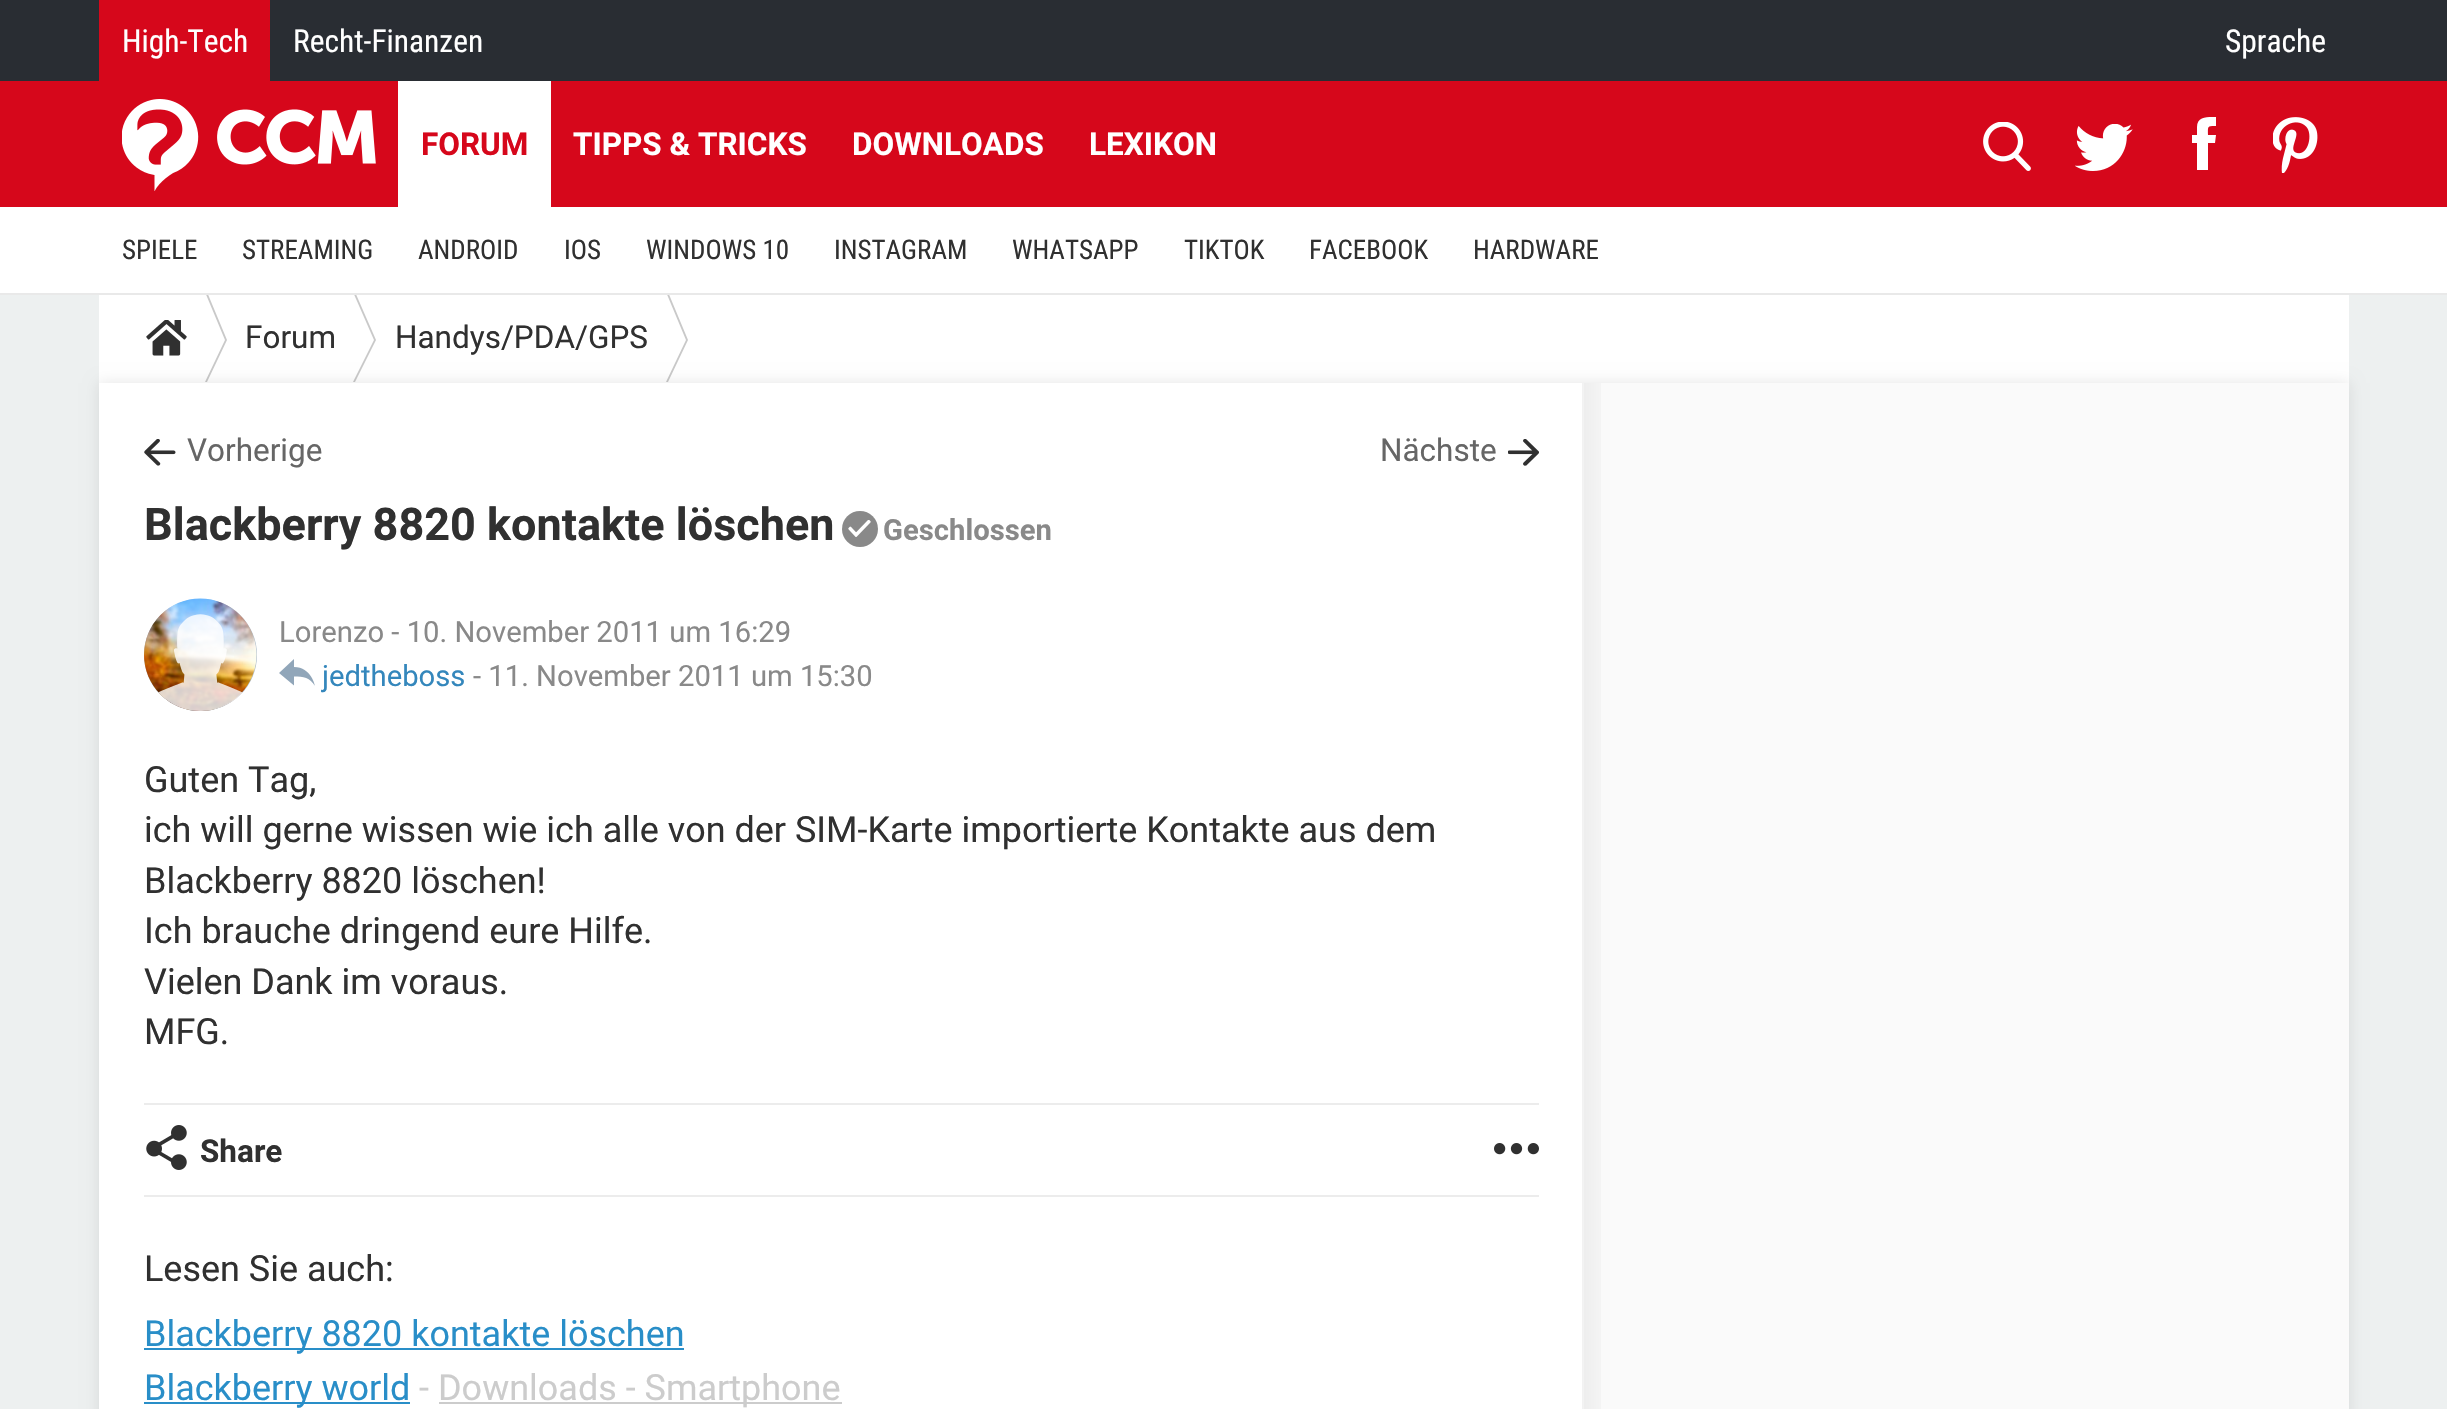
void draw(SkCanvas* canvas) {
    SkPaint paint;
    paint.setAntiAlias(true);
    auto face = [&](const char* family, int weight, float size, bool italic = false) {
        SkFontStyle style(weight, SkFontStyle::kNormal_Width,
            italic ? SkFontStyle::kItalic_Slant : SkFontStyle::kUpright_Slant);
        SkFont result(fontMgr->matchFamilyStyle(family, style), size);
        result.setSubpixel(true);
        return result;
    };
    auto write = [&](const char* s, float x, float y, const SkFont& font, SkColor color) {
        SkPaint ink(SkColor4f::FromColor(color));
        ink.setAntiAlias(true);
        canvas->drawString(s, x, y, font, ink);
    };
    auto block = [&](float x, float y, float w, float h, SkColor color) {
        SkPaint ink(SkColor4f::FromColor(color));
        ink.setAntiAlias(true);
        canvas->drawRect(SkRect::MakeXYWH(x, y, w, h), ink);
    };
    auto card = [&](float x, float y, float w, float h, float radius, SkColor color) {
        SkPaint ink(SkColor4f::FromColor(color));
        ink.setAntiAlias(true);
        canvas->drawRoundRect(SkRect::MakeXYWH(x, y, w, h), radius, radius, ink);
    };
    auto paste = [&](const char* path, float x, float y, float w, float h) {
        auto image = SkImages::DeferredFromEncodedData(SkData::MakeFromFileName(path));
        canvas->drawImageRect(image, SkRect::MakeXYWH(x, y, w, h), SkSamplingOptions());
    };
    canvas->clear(SkColorSetRGB(237, 240, 240));
    block(99, 295, 2250, 88, SK_ColorWHITE);
    paint.setColor(SkColorSetRGB(201, 201, 201));
    canvas->drawPath(SkPathBuilder(SkPathFillType::kEvenOdd).moveTo(205, 292).lineTo(207, 292).lineTo(227, 340).lineTo(207, 382).lineTo(205, 382).lineTo(225, 340).close().detach(), paint);
    canvas->drawPath(SkPathBuilder(SkPathFillType::kEvenOdd).moveTo(353, 292).lineTo(355, 292).lineTo(376, 340).lineTo(355, 382).lineTo(353, 382).lineTo(374, 340).close().detach(), paint);
    canvas->drawPath(SkPathBuilder(SkPathFillType::kEvenOdd).moveTo(666, 292).lineTo(668, 292).lineTo(688, 340).lineTo(668, 382).lineTo(666, 382).lineTo(686, 340).close().detach(), paint);
    block(0, 293, 2447, 2, SkColorSetRGB(233, 233, 233));
    block(0, 207, 2447, 86, SK_ColorWHITE);
    block(0, 0, 2447, 81, SkColorSetRGB(41, 45, 51));
    block(99, 0, 171, 81, SkColorSetRGB(214, 7, 27));
    auto kFont1 = face("Roboto Condensed", 400, 31.5f);
    write("High-Tech", 122, 52, kFont1, SK_ColorWHITE);
    write("Recht-Finanzen", 293, 52, kFont1, SK_ColorWHITE);
    write("Sprache", 2225, 52, kFont1, SK_ColorWHITE);
    block(0, 81, 2447, 126, SkColorSetRGB(214, 7, 27));
    paste("pic1.png", 122, 99, 254, 92);
    paste("pic2.png", 1983, 122, 48, 49);
    paste("pic3.png", 2075, 124, 58, 47);
    paint.setColor(SK_ColorWHITE);
    canvas->drawPath(SkPathBuilder().moveTo(2197, 127).lineTo(2197, 135).lineTo(2192, 135).lineTo(2192, 143).lineTo(2197, 143).lineTo(2197, 170).lineTo(2208, 170).lineTo(2208, 143).lineTo(2215, 143).lineTo(2216, 135).lineTo(2208, 135).cubicTo(2208, 126, 2207, 126, 2216, 126).lineTo(2216, 117).cubicTo(2208, 117, 2197, 116, 2197, 127).close().detach(), paint);
    paste("pic4.png", 2273, 117, 45, 56);
    block(398, 81, 153, 126, SK_ColorWHITE);
    auto kFont2 = face("Roboto", 700, 31.5f);
    write("FORUM", 421, 155, kFont2, SkColorSetRGB(214, 7, 27));
    write("TIPPS & TRICKS", 573, 155, kFont2, SK_ColorWHITE);
    write("DOWNLOADS", 852, 155, kFont2, SK_ColorWHITE);
    write("LEXIKON", 1089, 155, kFont2, SK_ColorWHITE);
    auto kFont3 = face("Roboto Condensed", 400, 27);
    write("SPIELE", 122, 259, kFont3, SkColorSetRGB(48, 48, 48));
    write("STREAMING", 242, 259, kFont3, SkColorSetRGB(48, 48, 48));
    write("ANDROID", 418, 259, kFont3, SkColorSetRGB(48, 48, 48));
    write("IOS", 564, 259, kFont3, SkColorSetRGB(48, 48, 48));
    write("WINDOWS 10", 646, 259, kFont3, SkColorSetRGB(48, 48, 48));
    write("INSTAGRAM", 834, 259, kFont3, SkColorSetRGB(48, 48, 48));
    write("WHATSAPP", 1012, 259, kFont3, SkColorSetRGB(48, 48, 48));
    write("TIKTOK", 1184, 259, kFont3, SkColorSetRGB(48, 48, 48));
    write("FACEBOOK", 1309, 259, kFont3, SkColorSetRGB(48, 48, 48));
    write("HARDWARE", 1473, 259, kFont3, SkColorSetRGB(48, 48, 48));
    paste("pic5.png", 146, 320, 41, 36);
    auto kFont4 = face("Roboto", 400, 31.5f);
    write("Forum", 245, 348, kFont4, SkColorSetRGB(48, 48, 48));
    write("Handys/PDA/GPS", 395, 348, kFont4, SkColorSetRGB(48, 48, 48));
    paint.setColor(SkColorSetARGB(26, 0, 0, 0));
    paint.setMaskFilter(SkMaskFilter::MakeBlur(kNormal_SkBlurStyle, 7));
    canvas->drawRect(SkRect::MakeXYWH(99, 383, 2250, 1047), paint);
    paint.setMaskFilter(nullptr);
    block(99, 383, 1485, 1026, SK_ColorWHITE);
    paste("pic6.png", 144, 439, 32, 27);
    write("Vorherige", 187, 461, kFont4, SkColorSetRGB(102, 102, 102));
    write("Nächste", 1380, 461, kFont4, SkColorSetRGB(102, 102, 102));
    paste("pic7.png", 1508, 439, 31, 27);
    auto kFont5 = face("Roboto", 700, 45);
    write("Blackberry 8820 kontakte löschen", 144, 540, kFont5, SkColorSetRGB(48, 48, 48));
    paint.setColor(SkColorSetRGB(137, 137, 137));
    canvas->drawCircle(860, 529, 18, paint);
    paste("pic8.png", 848, 520, 23, 17);
    auto kFont6 = face("Roboto", 700, 29.25f);
    write("Geschlossen", 883, 540, kFont6, SkColorSetRGB(137, 137, 137));
    card(144, 599, 113, 112, 56, SkColorSetRGB(176, 190, 203));
    paste("pic9.png", 144, 598, 113, 113);
    paste("pic10.png", 158, 614, 85, 97);
    auto kFont7 = face("Roboto", 400, 29.25f);
    write("Lorenzo - 10. November 2011 um 16:29", 279, 642, kFont7, SkColorSetRGB(137, 137, 137));
    paint.setColor(SkColorSetRGB(145, 166, 185));
    canvas->drawPath(SkPathBuilder().moveTo(294, 676.5f).lineTo(294, 685.5f).lineTo(279, 673).lineTo(294, 659).lineTo(294, 667).cubicTo(311.5f, 667, 315, 686, 315, 686).cubicTo(310, 677.5f, 303.5f, 676.5f, 294, 676.5f).close().detach(), paint);
    write("jedtheboss", 322, 686, kFont7, SkColorSetRGB(52, 135, 188));
    write("- 11. November 2011 um 15:30", 473, 686, kFont7, SkColorSetRGB(137, 137, 137));
    auto kFont8 = face("Roboto", 400, 36);
    write("Guten Tag,", 144, 792, kFont8, SkColorSetRGB(48, 48, 48));
    write("ich will gerne wissen wie ich alle von der SIM-Karte importierte Kontakte aus dem", 144, 842, kFont8, SkColorSetRGB(48, 48, 48));
    write("Blackberry 8820 löschen!", 144, 893, kFont8, SkColorSetRGB(48, 48, 48));
    write("Ich brauche dringend eure Hilfe.", 144, 943, kFont8, SkColorSetRGB(48, 48, 48));
    write("Vielen Dank im voraus.", 144, 994, kFont8, SkColorSetRGB(48, 48, 48));
    write("MFG.", 144, 1044, kFont8, SkColorSetRGB(48, 48, 48));
    block(144, 1103, 1395, 2, SkColorSetRGB(236, 236, 236));
    block(144, 1195, 1395, 2, SkColorSetRGB(236, 236, 236));
    paste("pic11.png", 146, 1125, 41, 45);
    write("Share", 200, 1162, kFont2, SkColorSetRGB(48, 48, 48));
    paste("pic12.png", 1494, 1143, 45, 12);
    write("Lesen Sie auch:", 144, 1281, kFont8, SkColorSetRGB(48, 48, 48));
    block(144, 1348, 540, 2, SkColorSetRGB(41, 142, 200));
    write("Blackberry 8820 kontakte löschen", 144, 1346, kFont8, SkColorSetRGB(41, 142, 200));
    block(144, 1402, 266, 2, SkColorSetRGB(41, 142, 200));
    write("Blackberry world", 144, 1400, kFont8, SkColorSetRGB(41, 142, 200));
    write("-", 419, 1400, kFont8, SkColorSetRGB(204, 204, 204));
    block(439, 1402, 403, 2, SkColorSetRGB(204, 204, 204));
    write("Downloads - Smartphone", 438, 1400, kFont8, SkColorSetRGB(204, 204, 204));
    block(1584, 383, 765, 1026, SkColorSetRGB(250, 250, 250));
    {
        const SkColor colors[] = {SkColorSetARGB(13, 0, 0, 0), SkColorSetARGB(0, 0, 0, 0)};
        const float stops[] = {0, 1};
        const SkPoint ends[] = {{1582, 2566}, {1616, 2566}};
        paint.setShader(SkGradientShader::MakeLinear(ends, colors, stops, 2, SkTileMode::kClamp));
        paint.setAlpha(255);
    }
    canvas->drawRect(SkRect::MakeXYWH(1582, 383, 19, 1026), paint);
}
